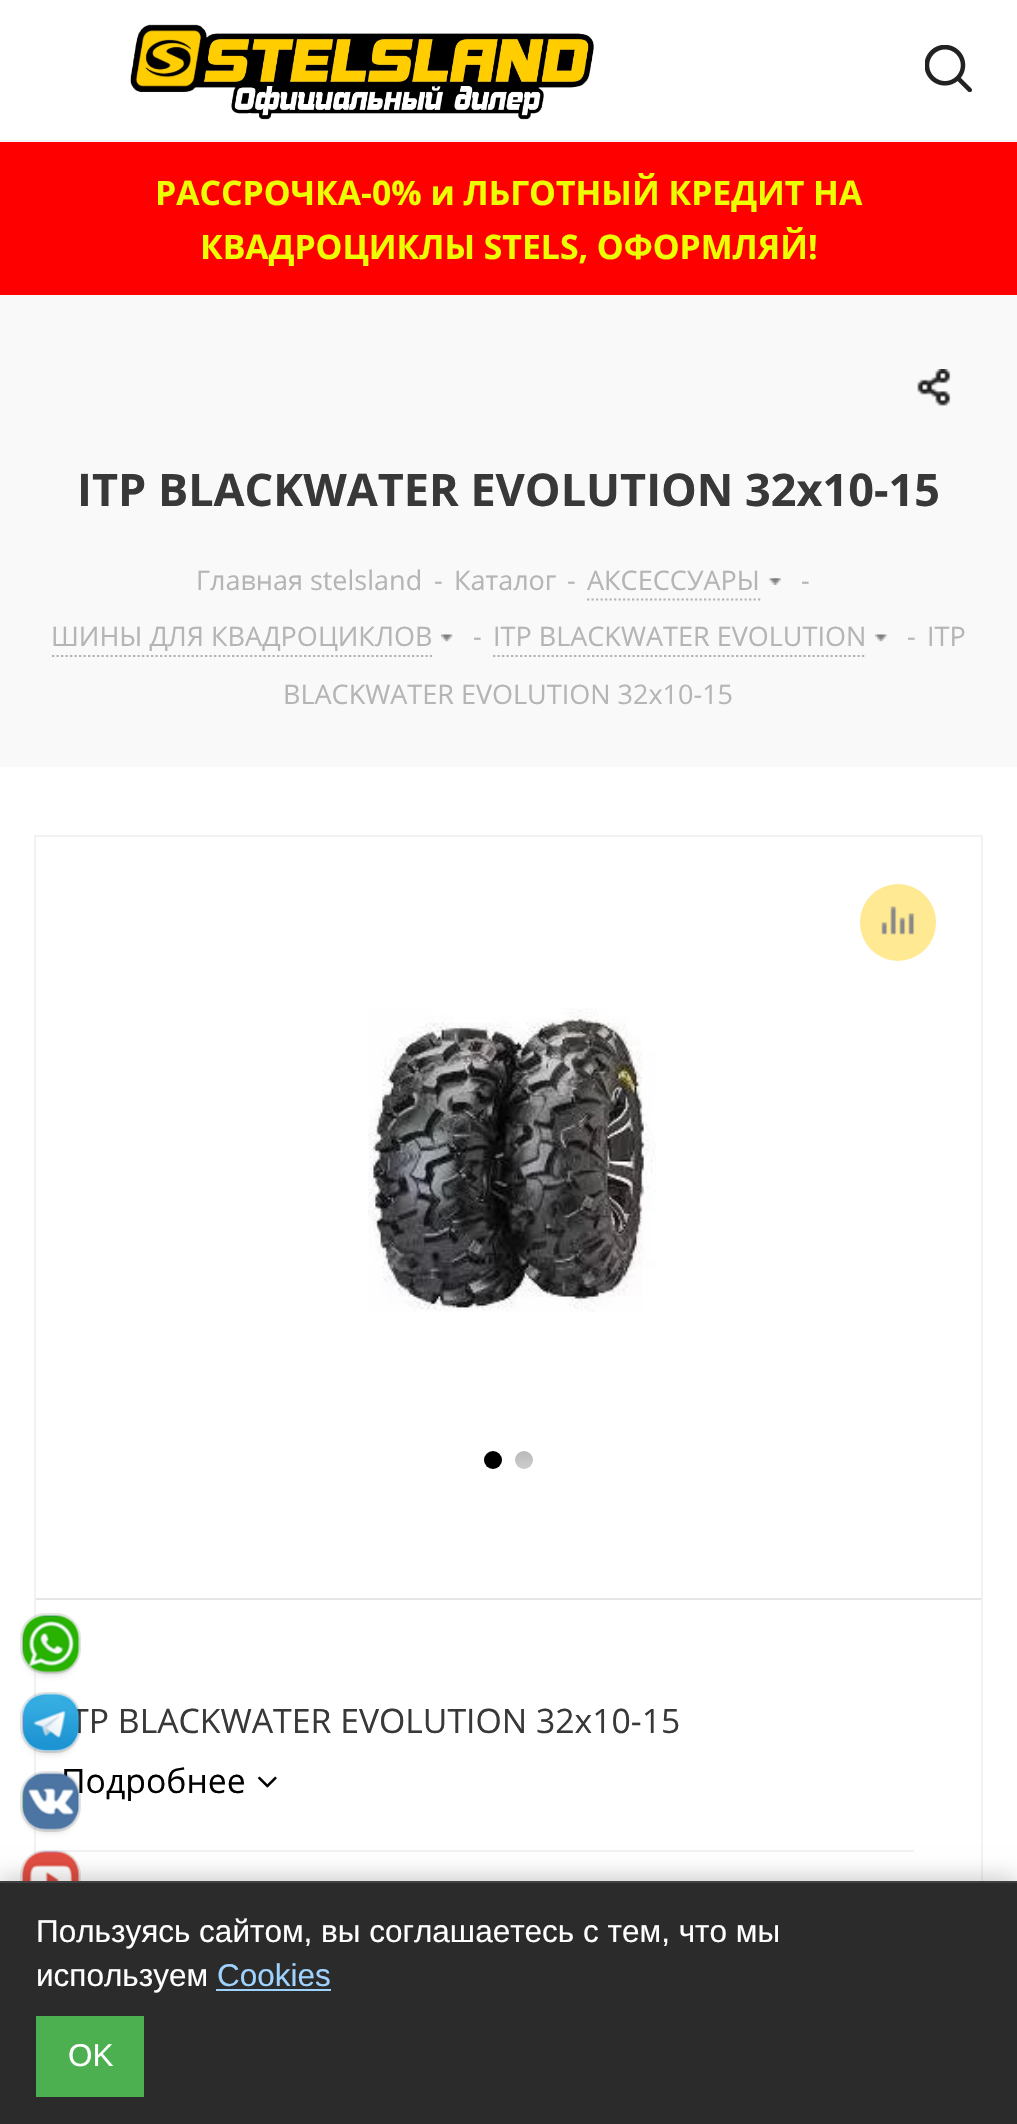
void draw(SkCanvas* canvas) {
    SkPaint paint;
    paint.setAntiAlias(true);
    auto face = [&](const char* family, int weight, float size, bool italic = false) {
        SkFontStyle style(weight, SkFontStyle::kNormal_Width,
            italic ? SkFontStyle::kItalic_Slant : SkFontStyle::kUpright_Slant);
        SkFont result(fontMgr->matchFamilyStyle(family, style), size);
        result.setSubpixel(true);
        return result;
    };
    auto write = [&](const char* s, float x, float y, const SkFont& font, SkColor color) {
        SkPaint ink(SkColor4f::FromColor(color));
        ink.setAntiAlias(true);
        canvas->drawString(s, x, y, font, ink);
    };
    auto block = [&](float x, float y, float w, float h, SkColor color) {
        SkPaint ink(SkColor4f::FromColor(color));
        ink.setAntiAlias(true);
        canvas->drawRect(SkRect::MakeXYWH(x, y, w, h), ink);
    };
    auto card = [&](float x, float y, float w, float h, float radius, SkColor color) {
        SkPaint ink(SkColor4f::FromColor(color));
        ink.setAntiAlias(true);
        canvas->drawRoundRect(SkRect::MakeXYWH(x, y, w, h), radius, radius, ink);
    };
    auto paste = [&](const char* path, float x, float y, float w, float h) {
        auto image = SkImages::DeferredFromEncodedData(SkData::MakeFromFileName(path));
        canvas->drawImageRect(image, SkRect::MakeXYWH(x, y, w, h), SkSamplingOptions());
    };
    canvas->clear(SK_ColorWHITE);
    paint.setStyle(SkPaint::kStroke_Style);
    paint.setStrokeWidth(2);
    paint.setColor(SkColorSetRGB(242, 242, 242));
    canvas->drawRect(SkRect::MakeXYWH(35, 836, 947, 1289), paint);
    paint.setStyle(SkPaint::kFill_Style);
    paint.setColor(SkColorSetARGB(77, 0, 0, 0));
    paint.setMaskFilter(SkMaskFilter::MakeBlur(kNormal_SkBlurStyle, 4.5f));
    canvas->drawRoundRect(SkRect::MakeXYWH(29, 1629, 43, 43), 16, 16, paint);
    paint.setMaskFilter(nullptr);
    paint.setStyle(SkPaint::kStroke_Style);
    paint.setColor(SkColorSetARGB(26, 0, 0, 0));
    canvas->drawRoundRect(SkRect::MakeXYWH(21, 1614, 59, 59), 24, 24, paint);
    paste("pic1.png", 22, 1615, 58, 58);
    canvas->save();
    canvas->clipPath(SkPathBuilder(SkPathFillType::kEvenOdd).moveTo(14, 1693).lineTo(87, 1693).lineTo(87, 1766).lineTo(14, 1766).close().moveTo(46, 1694).lineTo(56, 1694).cubicTo(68.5f, 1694, 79, 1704.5f, 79, 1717).lineTo(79, 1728).cubicTo(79, 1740.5f, 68.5f, 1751, 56, 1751).lineTo(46, 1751).cubicTo(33.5f, 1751, 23, 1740.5f, 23, 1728).lineTo(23, 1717).cubicTo(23, 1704.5f, 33.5f, 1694, 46, 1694).close().detach(), true);
    paint.setStyle(SkPaint::kFill_Style);
    paint.setColor(SkColorSetARGB(77, 0, 0, 0));
    paint.setMaskFilter(SkMaskFilter::MakeBlur(kNormal_SkBlurStyle, 4.5f));
    canvas->drawRoundRect(SkRect::MakeXYWH(29, 1708, 43, 43), 16, 16, paint);
    paint.setMaskFilter(nullptr);
    canvas->restore();
    auto kFont1 = face("Open Sans", 400, 33.75f);
    write("TP BLACKWATER EVOLUTION 32x10-15", 70, 1733, kFont1, SkColorSetRGB(56, 56, 56));
    paint.setStyle(SkPaint::kStroke_Style);
    paint.setColor(SkColorSetARGB(26, 0, 0, 0));
    canvas->drawRoundRect(SkRect::MakeXYWH(21, 1693, 59, 59), 24, 24, paint);
    paste("pic2.png", 22, 1693, 58, 58);
    paint.setStyle(SkPaint::kFill_Style);
    paint.setColor(SkColorSetARGB(77, 0, 0, 0));
    paint.setMaskFilter(SkMaskFilter::MakeBlur(kNormal_SkBlurStyle, 4.5f));
    canvas->drawRoundRect(SkRect::MakeXYWH(29, 1787, 43, 42), 16, 16, paint);
    paint.setMaskFilter(nullptr);
    write("Подробнее", 61, 1793, kFont1, SK_ColorBLACK);
    paint.setStyle(SkPaint::kStroke_Style);
    paint.setColor(SkColorSetARGB(26, 0, 0, 0));
    canvas->drawRoundRect(SkRect::MakeXYWH(21, 1772, 59, 59), 24, 24, paint);
    paste("pic3.png", 22, 1772, 58, 58);
    block(61, 1850, 853, 2, SkColorSetRGB(242, 242, 242));
    canvas->drawRoundRect(SkRect::MakeXYWH(21, 1851, 59, 58), 24, 24, paint);
    paste("pic4.png", 22, 1851, 58, 30);
    block(0, 140, 1017, 2, SkColorSetRGB(245, 245, 245));
    paste("pic5.png", 130, 24, 464, 96);
    paste("pic6.png", 925, 45, 47, 47);
    block(0, 142, 1017, 153, SkColorSetRGB(255, 0, 0));
    auto kFont2 = face("Open Sans", 700, 33.75f);
    write("РАССРОЧКА-0% и ЛЬГОТНЫЙ КРЕДИТ НА", 155, 205, kFont2, SkColorSetRGB(236, 254, 1));
    write("КВАДРОЦИКЛЫ STELS, ОФОРМЛЯЙ!", 200, 259, kFont2, SkColorSetRGB(236, 254, 1));
    block(0, 295, 1017, 472, SkColorSetRGB(249, 249, 249));
    paste("pic7.png", 917, 369, 34, 37);
    auto kFont3 = face("Open Sans", 700, 45);
    write("ITP BLACKWATER EVOLUTION 32x10-15", 77, 506, kFont3, SkColorSetRGB(56, 56, 56));
    auto kFont4 = face("Open Sans", 400, 27);
    write("Главная stelsland", 196, 590, kFont4, SkColorSetRGB(182, 181, 181));
    write("-", 434, 590, kFont4, SkColorSetRGB(182, 181, 181));
    write("Каталог", 454, 590, kFont4, SkColorSetRGB(182, 181, 181));
    write("-", 567, 590, kFont4, SkColorSetRGB(182, 181, 181));
    write("АКСЕССУАРЫ", 587, 590, kFont4, SkColorSetRGB(182, 181, 181));
    paint.setStrokeWidth(2.2f);
    paint.setColor(SkColorSetRGB(180, 180, 180));
    paint.setPathEffect(SkDashPathEffect::Make({{2.25f, 2.25f}}, 0));
    canvas->drawPath(SkPathBuilder().moveTo(587, 599.5f).lineTo(760.5f, 599.5f).detach(), paint);
    paint.setPathEffect(nullptr);
    paste("pic8.png", 769, 578, 12, 7);
    write("-", 801, 590, kFont4, SkColorSetRGB(182, 181, 181));
    write("ШИНЫ ДЛЯ КВАДРОЦИКЛОВ", 51, 646, kFont4, SkColorSetRGB(182, 181, 181));
    paint.setPathEffect(SkDashPathEffect::Make({{2.25f, 2.25f}}, 0));
    canvas->drawPath(SkPathBuilder().moveTo(52, 656).lineTo(432, 656).detach(), paint);
    paint.setPathEffect(nullptr);
    paste("pic9.png", 441, 634, 12, 8);
    write("-", 473, 646, kFont4, SkColorSetRGB(182, 181, 181));
    write("ITP BLACKWATER EVOLUTION", 493, 646, kFont4, SkColorSetRGB(182, 181, 181));
    paint.setPathEffect(SkDashPathEffect::Make({{2.25f, 2.25f}}, 0));
    canvas->drawPath(SkPathBuilder().moveTo(493, 656).lineTo(866, 656).detach(), paint);
    paint.setPathEffect(nullptr);
    paste("pic10.png", 875, 634, 12, 8);
    write("-", 907, 646, kFont4, SkColorSetRGB(182, 181, 181));
    write("ITP", 927, 646, kFont4, SkColorSetRGB(182, 181, 181));
    write("BLACKWATER EVOLUTION 32x10-15", 283, 704, kFont4, SkColorSetRGB(182, 181, 181));
    card(860, 884, 76, 77, 38, SkColorSetRGB(255, 233, 147));
    paste("pic11.png", 881, 906, 34, 29);
    paste("pic12.png", 368, 1008, 288, 304);
    paint.setStyle(SkPaint::kFill_Style);
    paint.setColor(SK_ColorBLACK);
    canvas->drawCircle(493, 1460, 9, paint);
    {
        const SkColor colors[] = {SkColorSetRGB(185, 185, 185), SkColorSetRGB(205, 205, 205)};
        const float stops[] = {0, 1};
        const SkPoint ends[] = {{524, 1451}, {524, 1469}};
        paint.setShader(SkGradientShader::MakeLinear(ends, colors, stops, 2, SkTileMode::kClamp));
        paint.setAlpha(255);
    }
    canvas->drawCircle(524, 1460, 9, paint);
    block(36, 1598, 945, 2, SkColorSetRGB(229, 229, 229));
    paste("pic13.png", 258, 1776, 19, 12);
    paint.setShader(nullptr);
    paint.setColor(SkColorSetARGB(51, 0, 0, 0));
    paint.setMaskFilter(SkMaskFilter::MakeBlur(kNormal_SkBlurStyle, 11));
    canvas->drawRect(SkRect::MakeXYWH(0, 1877, 1017, 243), paint);
    paint.setMaskFilter(nullptr);
    block(0, 1883, 1017, 241, SkColorSetRGB(43, 43, 43));
    block(0, 1881, 1017, 2, SkColorSetRGB(64, 64, 64));
    auto kFont5 = face("Liberation Sans", 400, 31.5f);
    write("Пользуясь сайтом, вы соглашаетесь с тем, что мы", 36, 1942, kFont5, SK_ColorWHITE);
    write("используем", 36, 1986, kFont5, SK_ColorWHITE);
    write("Cookies", 217, 1986, kFont5, SkColorSetRGB(159, 211, 255));
    block(216, 1989, 115, 2, SkColorSetRGB(159, 211, 255));
    block(36, 2016, 108, 81, SkColorSetRGB(76, 175, 80));
    write("ОK", 68, 2066, kFont5, SK_ColorWHITE);
}
